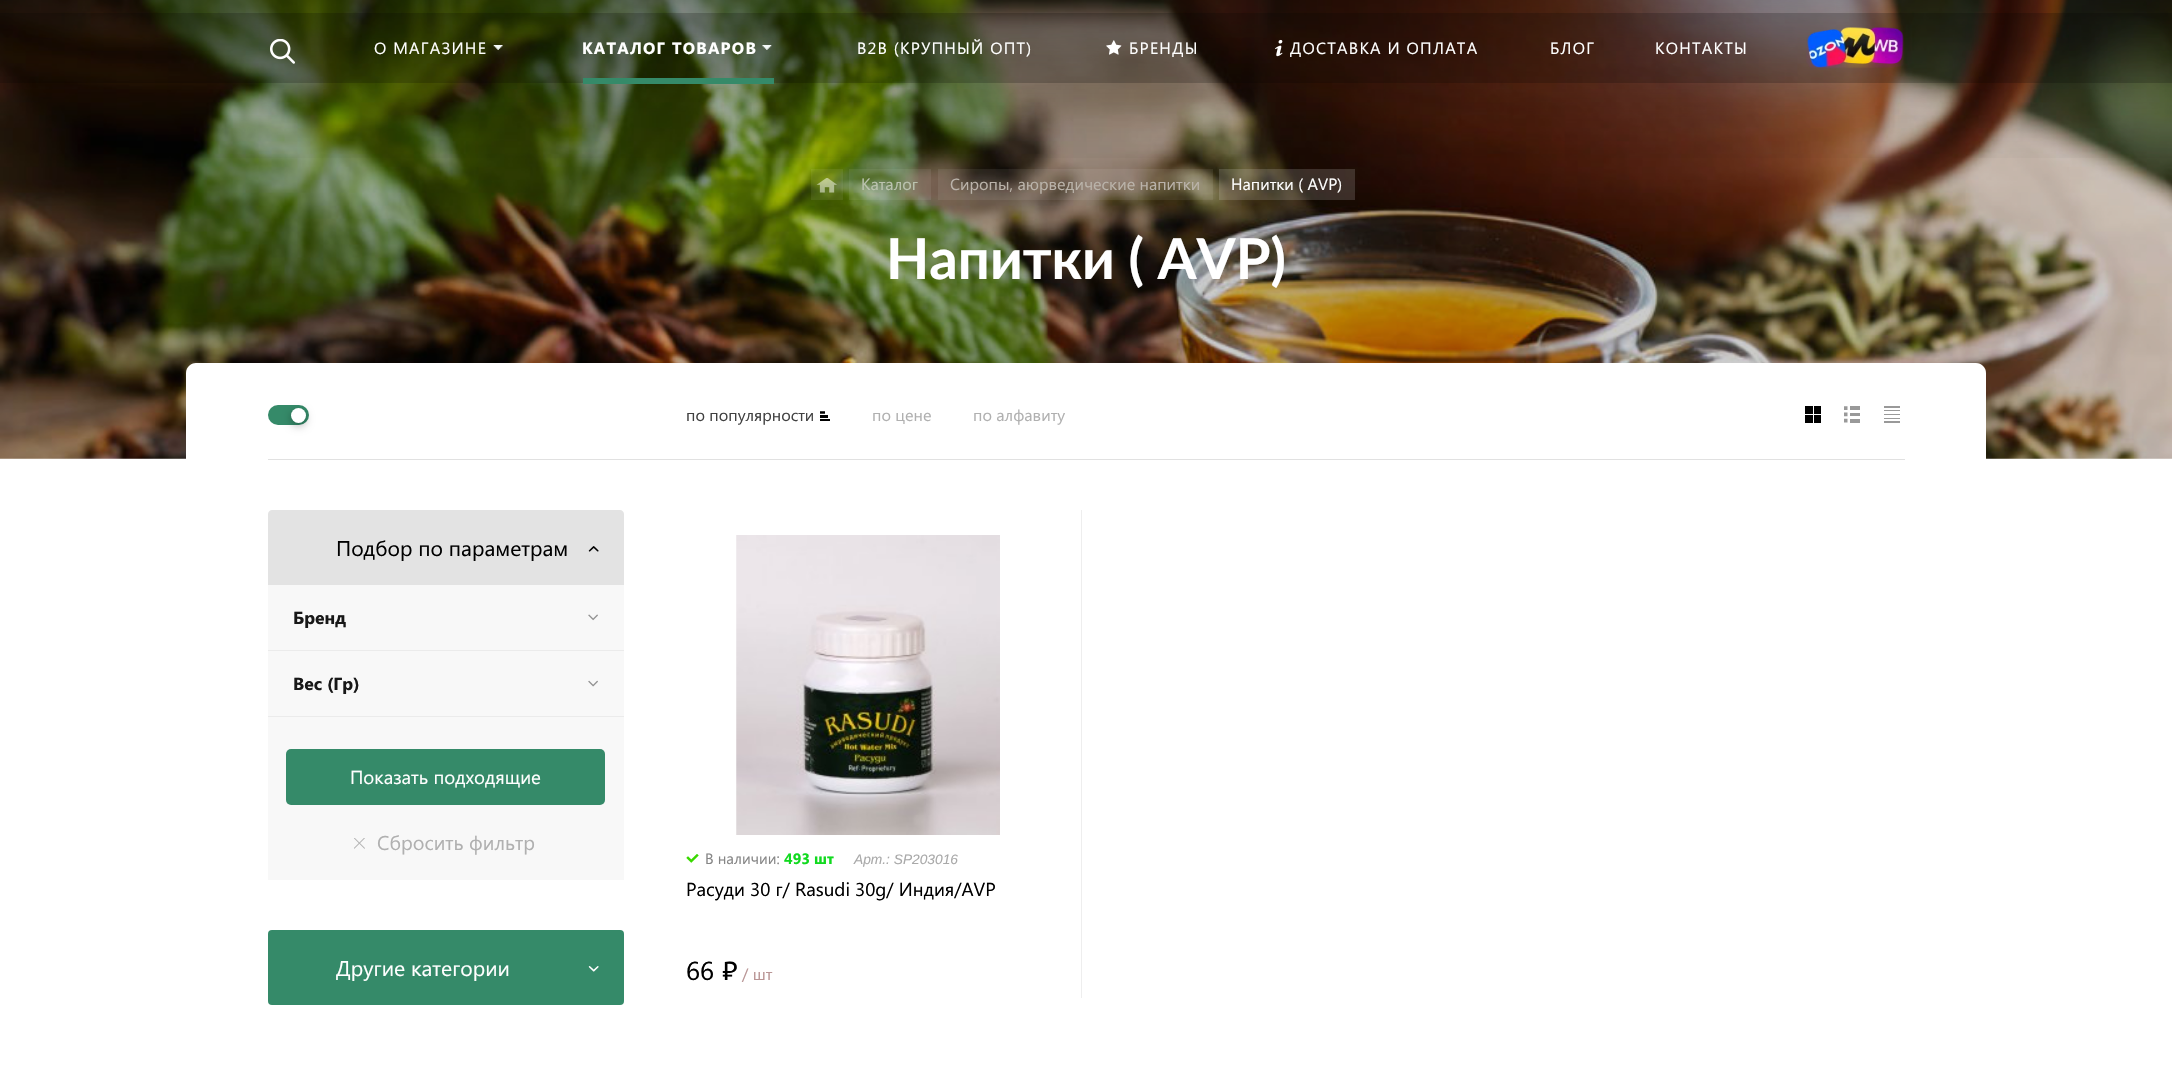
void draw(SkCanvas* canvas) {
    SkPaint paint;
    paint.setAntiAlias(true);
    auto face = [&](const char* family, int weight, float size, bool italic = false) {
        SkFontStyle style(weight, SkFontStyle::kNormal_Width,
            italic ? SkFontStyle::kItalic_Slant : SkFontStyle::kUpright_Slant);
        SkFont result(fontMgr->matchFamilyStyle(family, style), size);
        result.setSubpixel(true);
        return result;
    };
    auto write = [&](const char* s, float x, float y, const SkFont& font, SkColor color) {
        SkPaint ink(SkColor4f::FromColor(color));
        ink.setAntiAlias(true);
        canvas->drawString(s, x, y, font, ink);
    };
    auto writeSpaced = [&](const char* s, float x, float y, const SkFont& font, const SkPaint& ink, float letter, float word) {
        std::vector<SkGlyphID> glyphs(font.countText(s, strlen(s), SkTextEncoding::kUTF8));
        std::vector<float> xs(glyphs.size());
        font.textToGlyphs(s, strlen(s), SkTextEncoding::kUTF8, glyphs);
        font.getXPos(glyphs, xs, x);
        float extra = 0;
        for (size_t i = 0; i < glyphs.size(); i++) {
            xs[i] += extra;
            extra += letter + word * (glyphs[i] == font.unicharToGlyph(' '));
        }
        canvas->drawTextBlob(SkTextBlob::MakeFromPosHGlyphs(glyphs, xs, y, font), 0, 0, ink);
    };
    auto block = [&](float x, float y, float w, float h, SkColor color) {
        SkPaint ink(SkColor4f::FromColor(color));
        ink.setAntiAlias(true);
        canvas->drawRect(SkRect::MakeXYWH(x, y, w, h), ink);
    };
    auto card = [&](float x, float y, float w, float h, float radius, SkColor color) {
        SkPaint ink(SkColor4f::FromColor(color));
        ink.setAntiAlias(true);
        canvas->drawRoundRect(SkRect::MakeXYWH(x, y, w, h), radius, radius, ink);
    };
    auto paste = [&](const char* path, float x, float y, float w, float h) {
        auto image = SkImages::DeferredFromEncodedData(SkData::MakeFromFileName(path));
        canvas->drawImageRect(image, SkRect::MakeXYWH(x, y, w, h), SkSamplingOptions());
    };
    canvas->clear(SK_ColorWHITE);
    paste("pic7.png", 0, 0, 2172, 459);
    paste("pic8.png", 0, 0, 2172, 158);
    block(0, 13, 2172, 70, SkColorSetARGB(51, 0, 0, 0));
    paste("pic1.png", 270, 39, 25, 25);
    auto kFont1 = face("Segoe UI", 400, 16.25f);
    paint.setColor(SK_ColorWHITE);
    writeSpaced("О МАГАЗИНЕ", 374, 54, kFont1, paint, 1.25f, 0);
    paste("pic2.png", 493, 45, 10, 5);
    paste("pic3.png", 762, 45, 10, 5);
    auto kFont2 = face("Segoe UI", 700, 16.25f);
    writeSpaced("КАТАЛОГ ТОВАРОВ", 582, 54, kFont2, paint, 1.25f, 0);
    block(583, 78, 191, 6, SkColorSetRGB(53, 138, 105));
    writeSpaced("B2B (КРУПНЫЙ ОПТ)", 857, 54, kFont1, paint, 1.25f, 0);
    paste("pic4.png", 1106, 40, 16, 15);
    writeSpaced("БРЕНДЫ", 1129, 54, kFont1, paint, 1.25f, 0);
    paste("pic5.png", 1275, 39, 8, 18);
    writeSpaced("ДОСТАВКА И ОПЛАТА", 1290, 54, kFont1, paint, 1.25f, 0);
    writeSpaced("БЛОГ", 1550, 54, kFont1, paint, 1.25f, 0);
    writeSpaced("КОНТАКТЫ", 1655, 54, kFont1, paint, 1.25f, 0);
    paste("pic6.png", 1806, 27, 98, 42);
    block(811, 169, 32, 31, SkColorSetARGB(18, 255, 255, 255));
    paste("pic9.png", 816, 178, 21, 15);
    block(849, 169, 82, 31, SkColorSetARGB(18, 255, 255, 255));
    write("Каталог", 861, 190, kFont1, SkColorSetRGB(187, 195, 175));
    block(938, 169, 275, 31, SkColorSetARGB(18, 255, 255, 255));
    write("Сиропы, аюрведические напитки", 950, 190, kFont1, SkColorSetRGB(186, 179, 170));
    block(1219, 169, 136, 31, SkColorSetARGB(38, 255, 255, 255));
    write("Напитки ( AVP)", 1231, 190, kFont1, SK_ColorWHITE);
    auto kFont3 = face("Lato", 700, 56.25f);
    write("Напитки ( AVP)", 886, 279, kFont3, SK_ColorWHITE);
    canvas->drawPath(SkPathBuilder().moveTo(196, 363).lineTo(1976, 363).cubicTo(1981.5f, 363, 1986, 367.5f, 1986, 373).lineTo(1986, 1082).lineTo(186, 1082).lineTo(186, 373).cubicTo(186, 367.5f, 190.5f, 363, 196, 363).close().detach(), paint);
    block(268, 459, 1637, 1, SkColorSetRGB(225, 225, 225));
    card(268, 405, 41, 20, 10, SkColorSetRGB(53, 138, 105));
    paint.setColor(SkColorSetARGB(77, 0, 0, 0));
    paint.setMaskFilter(SkMaskFilter::MakeBlur(kNormal_SkBlurStyle, 4));
    canvas->drawRoundRect(SkRect::MakeXYWH(291, 411, 15, 15), 7.5f, 7.5f, paint);
    paint.setMaskFilter(nullptr);
    paint.setColor(SK_ColorWHITE);
    canvas->drawCircle(298.5f, 415.5f, 7.5f, paint);
    write("по популярности", 686, 421, kFont1, SkColorSetRGB(64, 64, 64));
    paste("pic10.png", 820, 411, 10, 10);
    write("по цене", 872, 421, kFont1, SkColorSetRGB(176, 176, 176));
    write("по алфавиту", 973, 421, kFont1, SkColorSetRGB(176, 176, 176));
    paste("pic11.png", 1805, 406, 16, 17);
    paste("pic12.png", 1844, 406, 16, 17);
    paste("pic13.png", 1884, 406, 16, 17);
    paint.setColor(SkColorSetRGB(227, 227, 227));
    canvas->drawPath(SkPathBuilder().moveTo(272, 510).lineTo(620, 510).cubicTo(622, 510, 624, 512, 624, 514).lineTo(624, 585).lineTo(268, 585).lineTo(268, 514).cubicTo(268, 512, 270, 510, 272, 510).close().detach(), paint);
    auto kFont4 = face("Segoe UI", 400, 21.25f);
    write("Подбор по параметрам", 336, 556, kFont4, SK_ColorBLACK);
    paste("pic14.png", 588, 546, 11, 6);
    block(268, 585, 356, 65, SkColorSetRGB(248, 248, 248));
    block(268, 650, 356, 1, SkColorSetRGB(235, 235, 235));
    auto kFont5 = face("Segoe UI", 700, 17.5f);
    write("Бренд", 293, 624, kFont5, SkColorSetRGB(24, 24, 24));
    paste("pic15.png", 588, 614, 10, 7);
    block(268, 651, 356, 229, SkColorSetRGB(248, 248, 248));
    block(268, 716, 356, 1, SkColorSetRGB(235, 235, 235));
    write("Вес (Гр)", 293, 690, kFont5, SkColorSetRGB(24, 24, 24));
    paste("pic16.png", 588, 680, 10, 7);
    card(286, 749, 319, 56, 5, SkColorSetRGB(53, 138, 105));
    auto kFont6 = face("Segoe UI", 400, 18.75f);
    write("Показать подходящие", 350, 784, kFont6, SK_ColorWHITE);
    paste("pic17.png", 354, 838, 11, 11);
    auto kFont7 = face("Segoe UI", 400, 20);
    write("Сбросить фильтр", 377, 850, kFont7, SkColorSetRGB(176, 176, 176));
    card(268, 930, 356, 75, 4, SkColorSetRGB(53, 138, 105));
    write("Другие категории", 336, 976, kFont4, SK_ColorWHITE);
    paste("pic18.png", 588, 966, 11, 6);
    block(1081, 510, 1, 488, SkColorSetRGB(238, 238, 238));
    paste("pic19.png", 736, 535, 264, 300);
    paste("pic20.png", 686, 854, 13, 9);
    auto kFont8 = face("Segoe UI", 400, 15);
    write("В наличии:", 705, 864, kFont8, SkColorSetRGB(134, 134, 134));
    auto kFont9 = face("Segoe UI", 700, 15);
    write("493 шт", 784, 864, kFont9, SkColorSetRGB(17, 218, 31));
    auto kFont10 = face("Liberation Sans", 400, 13.75f, true);
    write("Арт.: SP203016", 854, 864, kFont10, SkColorSetRGB(169, 169, 169));
    write("Расуди 30 г/ Rasudi 30g/ Индия/AVP", 686, 896, kFont6, SK_ColorBLACK);
    auto kFont11 = face("Segoe UI", 400, 26);
    write("66", 686, 980, kFont11, SK_ColorBLACK);
    auto kFont12 = face("PT Sans Caption", 400, 26);
    write("₽", 722, 980, kFont12, SK_ColorBLACK);
    write("/ шт", 742, 980, kFont1, SkColorSetRGB(185, 149, 149));
}
